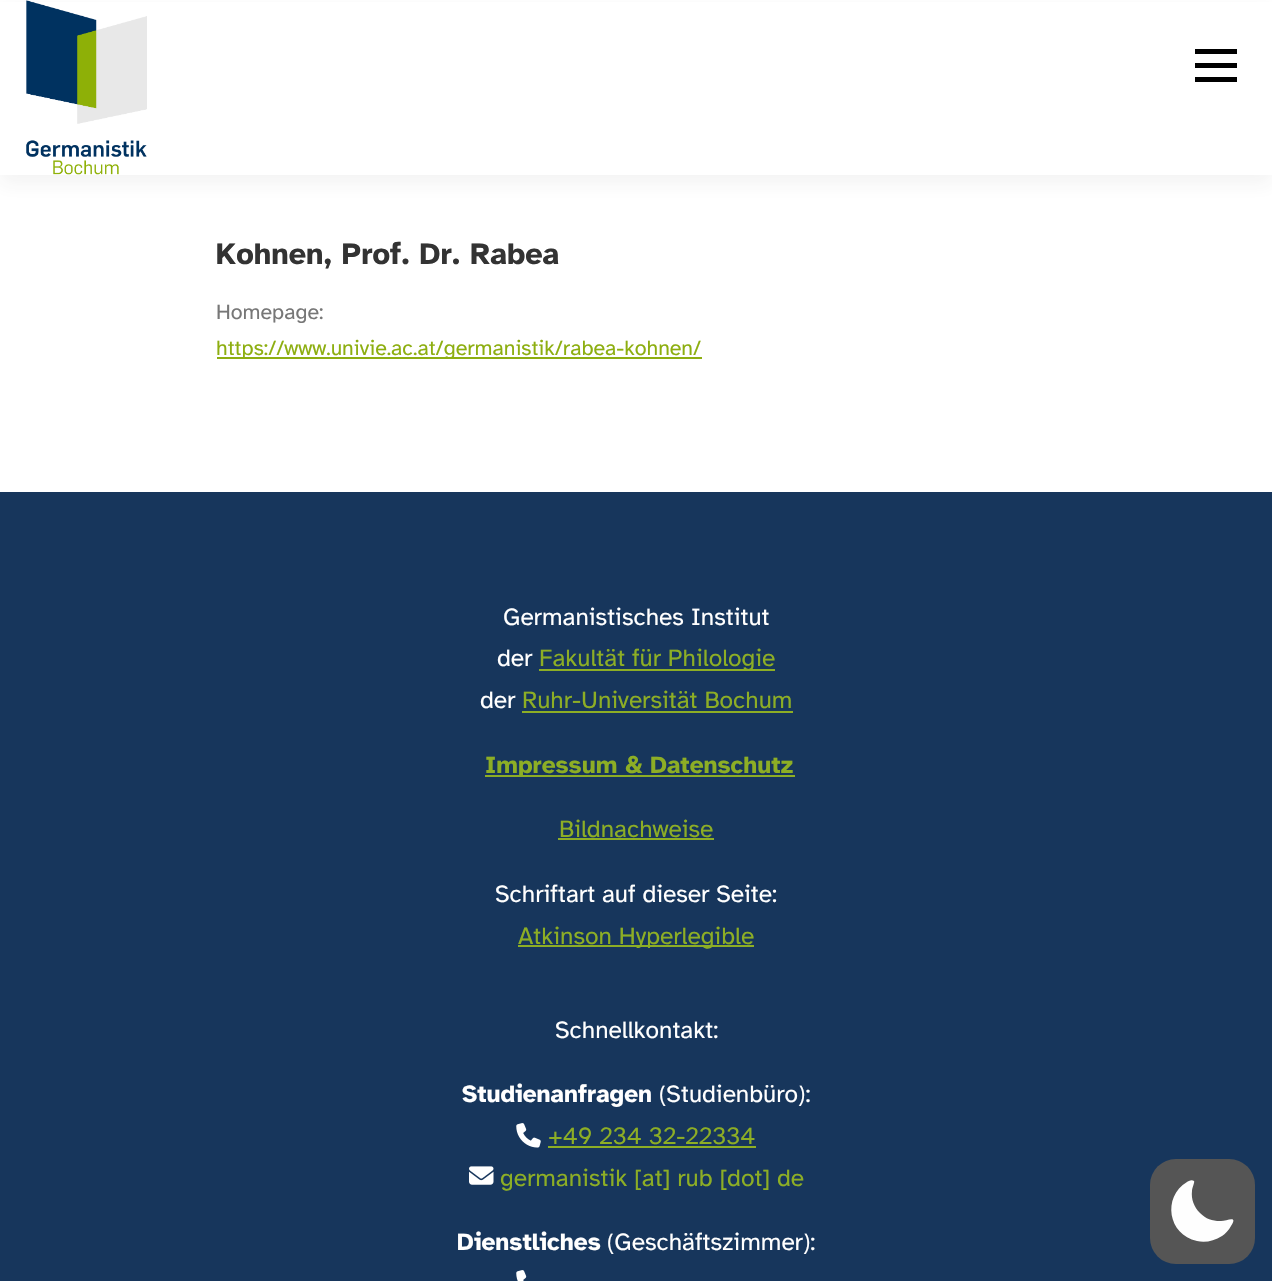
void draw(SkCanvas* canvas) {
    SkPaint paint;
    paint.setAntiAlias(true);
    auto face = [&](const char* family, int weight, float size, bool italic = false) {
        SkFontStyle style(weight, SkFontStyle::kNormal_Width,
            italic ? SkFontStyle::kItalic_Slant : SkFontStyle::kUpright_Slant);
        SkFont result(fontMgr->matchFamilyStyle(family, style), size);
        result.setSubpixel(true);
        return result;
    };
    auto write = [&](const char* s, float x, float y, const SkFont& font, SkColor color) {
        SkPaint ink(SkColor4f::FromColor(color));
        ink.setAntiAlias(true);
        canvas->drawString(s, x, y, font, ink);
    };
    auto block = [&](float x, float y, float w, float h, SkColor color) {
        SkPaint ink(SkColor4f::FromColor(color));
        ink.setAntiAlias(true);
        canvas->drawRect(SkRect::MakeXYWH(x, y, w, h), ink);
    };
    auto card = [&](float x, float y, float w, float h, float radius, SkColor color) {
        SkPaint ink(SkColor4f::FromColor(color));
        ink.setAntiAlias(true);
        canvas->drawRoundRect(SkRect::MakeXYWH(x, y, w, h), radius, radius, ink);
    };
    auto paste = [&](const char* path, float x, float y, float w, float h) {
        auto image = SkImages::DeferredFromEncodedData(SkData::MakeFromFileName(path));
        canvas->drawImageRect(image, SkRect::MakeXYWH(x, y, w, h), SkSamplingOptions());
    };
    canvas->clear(SK_ColorWHITE);
    paint.setColor(SkColorSetARGB(15, 50, 50, 50));
    paint.setMaskFilter(SkMaskFilter::MakeBlur(kNormal_SkBlurStyle, 9));
    canvas->drawRect(SkRect::MakeXYWH(0, 9, 1272, 175), paint);
    paint.setMaskFilter(nullptr);
    block(0, 2, 1272, 173, SK_ColorWHITE);
    paste("pic1.png", 26, 0, 121, 175);
    block(1195, 63, 42, 5, SK_ColorBLACK);
    block(1195, 49, 42, 5, SK_ColorBLACK);
    block(1195, 77, 42, 5, SK_ColorBLACK);
    auto kFont1 = face("Atkinson Hyperlegible", 700, 30.6f);
    write("Kohnen, Prof. Dr. Rabea", 216, 264, kFont1, SkColorSetRGB(51, 51, 51));
    auto kFont2 = face("Atkinson Hyperlegible", 400, 21.4f);
    write("Homepage:", 216, 319, kFont2, SkColorSetRGB(119, 119, 119));
    block(217, 357, 485, 2, SkColorSetRGB(141, 174, 16));
    write("https://www.univie.ac.at/germanistik/rabea-kohnen/", 216, 355, kFont2, SkColorSetRGB(141, 174, 16));
    block(0, 492, 1272, 789, SkColorSetRGB(23, 54, 92));
    auto kFont3 = face("Atkinson Hyperlegible", 400, 24.5f);
    write("Germanistisches Institut", 503, 625, kFont3, SK_ColorWHITE);
    write("der", 497, 666, kFont3, SK_ColorWHITE);
    block(539, 669, 236, 2, SkColorSetRGB(141, 174, 37));
    write("Fakultät für Philologie", 539, 666, kFont3, SkColorSetRGB(141, 174, 37));
    write("der", 480, 708, kFont3, SK_ColorWHITE);
    write("Ruhr-Universität Bochum", 522, 708, kFont3, SkColorSetRGB(141, 174, 37));
    block(522, 711, 271, 2, SkColorSetRGB(141, 174, 37));
    block(485, 775, 310, 2, SkColorSetRGB(141, 174, 37));
    auto kFont4 = face("Atkinson Hyperlegible", 700, 24.5f);
    write("Impressum & Datenschutz", 485, 773, kFont4, SkColorSetRGB(141, 174, 37));
    write("Bildnachweise", 559, 837, kFont3, SkColorSetRGB(141, 174, 37));
    block(558, 838, 156, 2, SkColorSetRGB(141, 174, 37));
    write("Schriftart auf dieser Seite:", 495, 902, kFont3, SK_ColorWHITE);
    block(518, 945, 236, 2, SkColorSetRGB(141, 174, 37));
    write("Atkinson Hyperlegible", 518, 944, kFont3, SkColorSetRGB(141, 174, 37));
    write("Schnellkontakt:", 555, 1038, kFont3, SK_ColorWHITE);
    write("Studienanfragen", 462, 1102, kFont4, SK_ColorWHITE);
    write("(Studienbüro):", 659, 1102, kFont3, SK_ColorWHITE);
    paste("pic2.png", 516, 1123, 25, 25);
    write("+49 234 32-22334", 548, 1144, kFont3, SkColorSetRGB(141, 174, 37));
    block(548, 1146, 208, 2, SkColorSetRGB(141, 174, 37));
    paste("pic3.png", 469, 1166, 25, 19);
    write("germanistik [at] rub [dot] de", 500, 1186, kFont3, SkColorSetRGB(141, 174, 37));
    write("Dienstliches", 457, 1250, kFont4, SK_ColorWHITE);
    write("(Geschäftszimmer):", 607, 1250, kFont3, SK_ColorWHITE);
    paste("pic4.png", 516, 1270, 11, 11);
    card(1150, 1159, 105, 105, 26, SkColorSetRGB(85, 85, 85));
    paint.setColor(SkColorSetRGB(254, 254, 254));
    canvas->drawPath(SkPathBuilder(SkPathFillType::kEvenOdd).moveTo(1194, 1181).cubicTo(1195, 1182, 1192, 1188, 1192, 1191).cubicTo(1191, 1199, 1194, 1207, 1200, 1213).cubicTo(1206, 1219, 1212, 1221, 1220, 1221).cubicTo(1225, 1222, 1239, 1214, 1231, 1226).cubicTo(1229, 1230, 1225, 1234, 1222, 1236).cubicTo(1214, 1241, 1205, 1243, 1197, 1241).cubicTo(1168, 1235, 1162, 1197, 1187, 1182).cubicTo(1188, 1181, 1192, 1179, 1194, 1181).close().detach(), paint);
}
